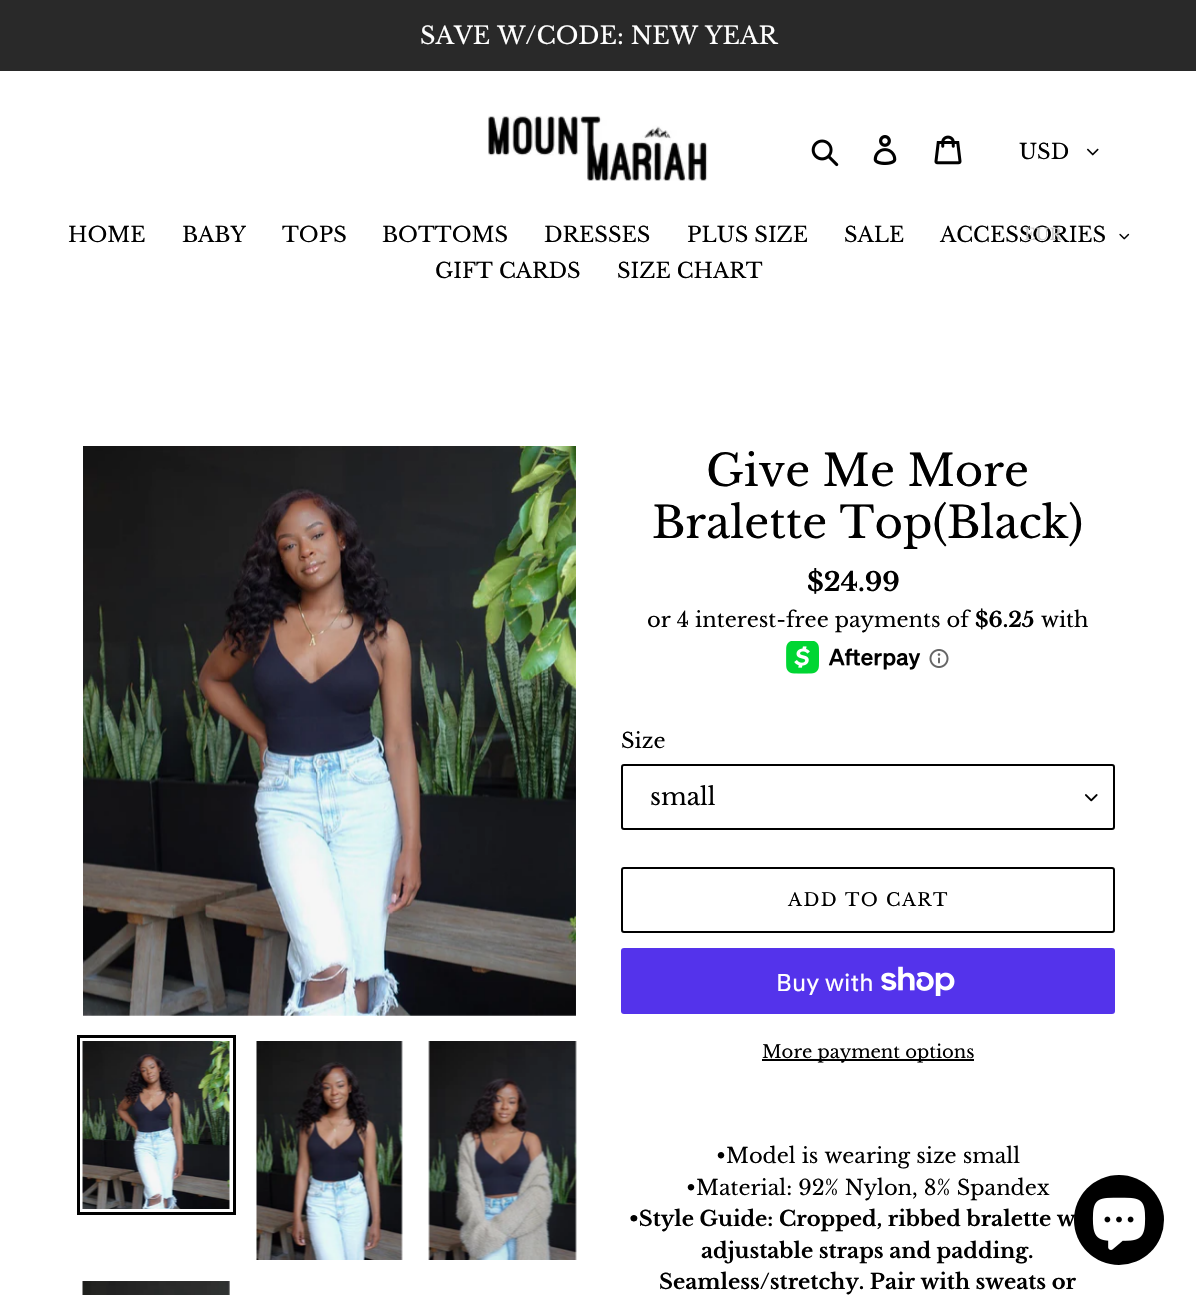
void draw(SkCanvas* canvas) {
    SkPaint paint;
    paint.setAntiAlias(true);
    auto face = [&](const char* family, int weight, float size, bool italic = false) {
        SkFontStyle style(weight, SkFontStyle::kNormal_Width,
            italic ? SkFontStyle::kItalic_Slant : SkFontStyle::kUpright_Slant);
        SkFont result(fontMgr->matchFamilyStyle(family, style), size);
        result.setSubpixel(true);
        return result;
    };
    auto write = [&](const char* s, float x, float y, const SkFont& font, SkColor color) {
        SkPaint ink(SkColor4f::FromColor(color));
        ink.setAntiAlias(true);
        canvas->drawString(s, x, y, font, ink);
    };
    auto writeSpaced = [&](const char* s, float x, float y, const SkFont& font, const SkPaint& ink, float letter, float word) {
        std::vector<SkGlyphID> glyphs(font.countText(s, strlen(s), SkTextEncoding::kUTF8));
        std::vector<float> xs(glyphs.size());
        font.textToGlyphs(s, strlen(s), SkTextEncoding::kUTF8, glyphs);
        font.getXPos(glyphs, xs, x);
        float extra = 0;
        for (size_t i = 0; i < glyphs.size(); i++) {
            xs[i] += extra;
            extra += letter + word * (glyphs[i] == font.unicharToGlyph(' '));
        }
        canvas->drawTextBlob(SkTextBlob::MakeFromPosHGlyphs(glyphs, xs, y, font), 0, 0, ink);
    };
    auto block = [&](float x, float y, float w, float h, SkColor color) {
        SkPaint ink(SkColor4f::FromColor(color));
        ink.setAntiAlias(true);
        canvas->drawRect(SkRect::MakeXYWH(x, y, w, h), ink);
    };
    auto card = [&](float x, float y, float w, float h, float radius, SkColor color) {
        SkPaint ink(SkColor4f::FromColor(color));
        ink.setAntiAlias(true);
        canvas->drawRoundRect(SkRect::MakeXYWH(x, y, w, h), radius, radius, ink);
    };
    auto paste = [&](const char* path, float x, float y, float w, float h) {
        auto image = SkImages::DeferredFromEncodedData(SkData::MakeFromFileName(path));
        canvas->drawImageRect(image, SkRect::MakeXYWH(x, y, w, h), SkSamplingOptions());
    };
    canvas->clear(SK_ColorWHITE);
    block(0, 0, 1196, 71, SkColorSetRGB(41, 41, 41));
    auto kFont1 = face("Libre Baskerville", 400, 24);
    write("SAVE W/CODE: NEW YEAR", 420, 44, kFont1, SK_ColorWHITE);
    paste("pic1.png", 488, 115, 220, 66);
    paste("pic2.png", 811, 139, 28, 28);
    paste("pic3.png", 873, 135, 24, 30);
    paste("pic4.png", 934, 135, 28, 30);
    auto kFont2 = face("Libre Baskerville", 400, 21);
    write("USD", 1019, 159, kFont2, SK_ColorBLACK);
    write("ACCESSORIES", 940, 242, kFont2, SK_ColorBLACK);
    auto kFont3 = face("Libre Baskerville", 400, 16);
    write("EUR", 1024, 240, kFont3, SkColorSetRGB(205, 205, 205));
    paste("pic5.png", 1086, 148, 13, 8);
    write("HOME", 68, 242, kFont2, SK_ColorBLACK);
    write("BABY", 182, 242, kFont2, SK_ColorBLACK);
    write("TOPS", 282, 242, kFont2, SK_ColorBLACK);
    write("BOTTOMS", 382, 242, kFont2, SK_ColorBLACK);
    write("DRESSES", 544, 242, kFont2, SK_ColorBLACK);
    write("PLUS SIZE", 687, 242, kFont2, SK_ColorBLACK);
    write("SALE", 844, 242, kFont2, SK_ColorBLACK);
    paste("pic6.png", 1119, 233, 11, 7);
    write("GIFT CARDS", 435, 278, kFont2, SK_ColorBLACK);
    write("SIZE CHART", 617, 278, kFont2, SK_ColorBLACK);
    paste("pic7.png", 83, 446, 493, 570);
    paint.setStyle(SkPaint::kStroke_Style);
    paint.setStrokeWidth(3);
    paint.setColor(SK_ColorBLACK);
    canvas->drawRect(SkRect::MakeXYWH(78.5f, 1036.5f, 156, 177), paint);
    paste("pic8.png", 82, 1041, 148, 168);
    paste("pic9.png", 256, 1041, 147, 219);
    paste("pic10.png", 428, 1041, 149, 219);
    paste("pic11.png", 82, 1281, 148, 14);
    auto kFont4 = face("Libre Baskerville", 400, 43.5f);
    write("Give Me More", 706, 486, kFont4, SK_ColorBLACK);
    write("Bralette Top(Black)", 652, 538, kFont4, SK_ColorBLACK);
    auto kFont5 = face("Libre Baskerville", 700, 26);
    write("$24.99", 807, 591, kFont5, SK_ColorBLACK);
    write("or 4 interest-free payments of", 647, 627, kFont2, SK_ColorBLACK);
    auto kFont6 = face("Libre Baskerville", 700, 21);
    write("$6.25", 975, 627, kFont6, SK_ColorBLACK);
    write("with", 1041, 627, kFont2, SK_ColorBLACK);
    paste("pic12.png", 786, 641, 135, 33);
    paste("pic13.png", 929, 649, 20, 19);
    write("Size", 621, 748, kFont2, SK_ColorBLACK);
    paste("pic14.png", 1085, 794, 13, 8);
    paint.setStrokeWidth(2);
    canvas->drawRoundRect(SkRect::MakeXYWH(622, 765, 492, 64), 2, 2, paint);
    write("small", 650, 805, kFont1, SK_ColorBLACK);
    canvas->drawRoundRect(SkRect::MakeXYWH(622, 868, 492, 64), 2, 2, paint);
    auto kFont7 = face("Libre Baskerville", 400, 18);
    paint.setStyle(SkPaint::kFill_Style);
    writeSpaced("ADD TO CART", 788, 906, kFont7, paint, 1.5f, 0);
    card(621, 948, 494, 66, 3, SkColorSetRGB(84, 51, 235));
    auto kFont8 = face("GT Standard", 400, 24);
    write("Buy with", 776, 991, kFont8, SK_ColorWHITE);
    paste("pic15.png", 881, 966, 74, 30);
    block(762, 1059, 212, 2, SK_ColorBLACK);
    write("More payment options", 762, 1058, kFont7, SK_ColorBLACK);
    write("•Model is wearing size small", 716, 1163, kFont2, SK_ColorBLACK);
    write("•Material: 92% Nylon, 8% Spandex", 686, 1195, kFont2, SK_ColorBLACK);
    write("•Style Guide: Cropped, ribbed bralette w", 629, 1226, kFont6, SK_ColorBLACK);
    write("adjustable straps and padding.", 701, 1258, kFont6, SK_ColorBLACK);
    write("Seamless/stretchy. Pair with sweats or", 659, 1289, kFont6, SK_ColorBLACK);
    canvas->drawCircle(1119, 1220, 45, paint);
    paste("pic16.png", 1092, 1197, 54, 53);
}
